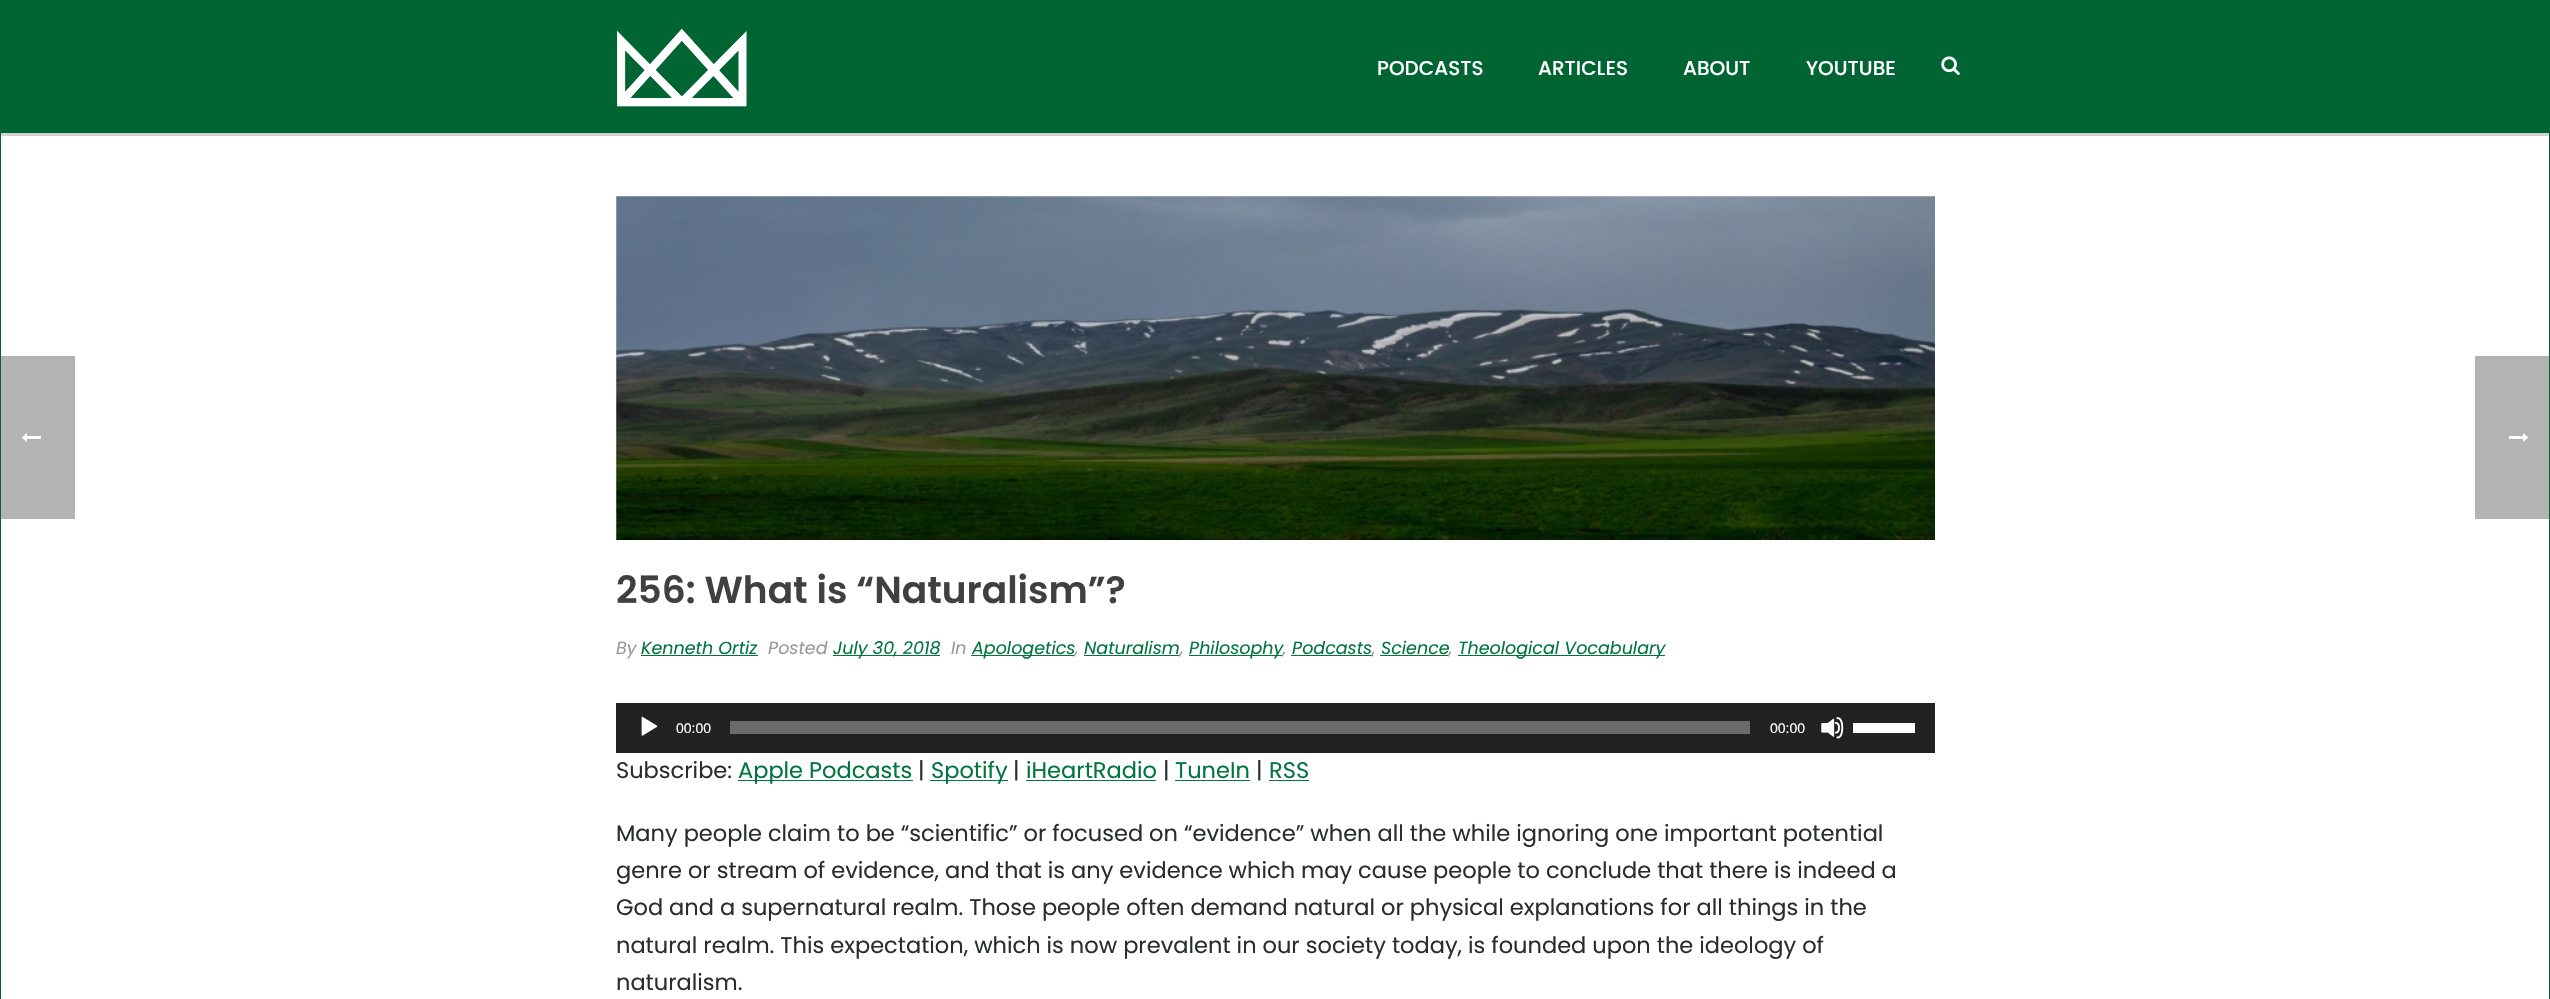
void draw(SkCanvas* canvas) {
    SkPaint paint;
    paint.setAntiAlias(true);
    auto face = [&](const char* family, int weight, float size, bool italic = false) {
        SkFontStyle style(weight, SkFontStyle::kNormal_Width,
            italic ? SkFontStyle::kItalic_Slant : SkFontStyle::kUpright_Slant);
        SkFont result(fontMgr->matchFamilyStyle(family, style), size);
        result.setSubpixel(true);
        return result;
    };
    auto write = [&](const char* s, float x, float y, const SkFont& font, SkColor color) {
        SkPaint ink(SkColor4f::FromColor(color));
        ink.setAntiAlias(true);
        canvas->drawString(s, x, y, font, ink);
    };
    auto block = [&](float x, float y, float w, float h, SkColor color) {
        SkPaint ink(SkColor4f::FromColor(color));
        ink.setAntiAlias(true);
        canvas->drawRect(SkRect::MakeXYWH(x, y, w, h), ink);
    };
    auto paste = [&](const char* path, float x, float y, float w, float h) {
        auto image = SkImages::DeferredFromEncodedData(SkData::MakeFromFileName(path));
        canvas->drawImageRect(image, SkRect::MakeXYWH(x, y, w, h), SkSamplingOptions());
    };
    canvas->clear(SK_ColorWHITE);
    block(0, 0, 2550, 1, SkColorSetRGB(0, 101, 51));
    block(0, 0, 1, 999, SkColorSetRGB(0, 101, 51));
    block(1, 356, 74, 163, SkColorSetRGB(179, 179, 179));
    paste("pic1.png", 22, 433, 19, 9);
    block(1, 133, 2548, 3, SkColorSetRGB(209, 209, 209));
    block(1, 1, 2548, 132, SkColorSetRGB(0, 101, 51));
    paste("pic2.png", 617, 28, 130, 79);
    auto kFont1 = face("Poppins", 500, 20);
    write("PODCASTS", 1377, 75, kFont1, SK_ColorWHITE);
    write("ARTICLES", 1538, 75, kFont1, SK_ColorWHITE);
    write("ABOUT", 1683, 75, kFont1, SK_ColorWHITE);
    write("YOUTUBE", 1806, 75, kFont1, SK_ColorWHITE);
    paste("pic3.png", 1941, 56, 19, 19);
    paste("pic4.png", 616, 196, 1319, 344);
    auto kFont2 = face("Poppins", 600, 37.5f);
    write("256: What is “Naturalism”?", 616, 603, kFont2, SkColorSetRGB(64, 64, 64));
    auto kFont3 = face("Poppins", 400, 17.5f, true);
    write("By", 616, 654, kFont3, SkColorSetRGB(153, 153, 153));
    write("Kenneth Ortiz", 641, 654, kFont3, SkColorSetRGB(0, 117, 62));
    block(641, 655, 117, 1, SkColorSetRGB(0, 117, 62));
    write("Posted", 768, 654, kFont3, SkColorSetRGB(153, 153, 153));
    block(833, 655, 107, 1, SkColorSetRGB(0, 117, 62));
    write("July 30, 2018", 833, 654, kFont3, SkColorSetRGB(0, 117, 62));
    write("In", 951, 654, kFont3, SkColorSetRGB(153, 153, 153));
    block(971, 655, 104, 1, SkColorSetRGB(0, 117, 62));
    write("Apologetics", 972, 654, kFont3, SkColorSetRGB(0, 117, 62));
    write(",", 1075, 654, kFont3, SkColorSetRGB(153, 153, 153));
    write("Naturalism", 1084, 654, kFont3, SkColorSetRGB(0, 117, 62));
    block(1084, 655, 96, 1, SkColorSetRGB(0, 117, 62));
    write(",", 1180, 654, kFont3, SkColorSetRGB(153, 153, 153));
    block(1189, 655, 94, 1, SkColorSetRGB(0, 117, 62));
    write("Philosophy", 1189, 654, kFont3, SkColorSetRGB(0, 117, 62));
    write("Podcasts", 1292, 654, kFont3, SkColorSetRGB(0, 117, 62));
    block(1291, 655, 82, 1, SkColorSetRGB(0, 117, 62));
    write("Science", 1381, 654, kFont3, SkColorSetRGB(0, 117, 62));
    block(1380, 655, 69, 1, SkColorSetRGB(0, 117, 62));
    block(1458, 655, 207, 1, SkColorSetRGB(0, 117, 62));
    write("Theological Vocabulary", 1458, 654, kFont3, SkColorSetRGB(0, 117, 62));
    write(",", 1283, 654, kFont3, SkColorSetRGB(153, 153, 153));
    write(",", 1372, 654, kFont3, SkColorSetRGB(153, 153, 153));
    write(",", 1449, 654, kFont3, SkColorSetRGB(153, 153, 153));
    block(616, 703, 1319, 50, SkColorSetRGB(34, 34, 34));
    paste("pic5.png", 641, 716, 17, 20);
    canvas->save();
    canvas->clipRect(SkRect::MakeXYWH(669, 703, 49, 30));
    auto kFont4 = face("Liberation Sans", 400, 14);
    write("00:00", 676, 733, kFont4, SK_ColorWHITE);
    canvas->restore();
    block(730, 721, 1020, 13, SkColorSetRGB(107, 107, 107));
    canvas->save();
    canvas->clipRect(SkRect::MakeXYWH(1763, 703, 50, 30));
    write("00:00", 1770, 733, kFont4, SK_ColorWHITE);
    canvas->restore();
    paste("pic6.png", 1821, 717, 23, 22);
    block(1853, 723, 62, 10, SK_ColorWHITE);
    auto kFont5 = face("Poppins", 400, 22.5f);
    write("Subscribe:", 616, 778, kFont5, SkColorSetRGB(42, 45, 46));
    block(738, 780, 175, 1, SkColorSetRGB(0, 117, 62));
    write("Apple Podcasts", 738, 778, kFont5, SkColorSetRGB(0, 117, 62));
    write("|", 918, 778, kFont5, SkColorSetRGB(42, 45, 46));
    block(930, 780, 78, 1, SkColorSetRGB(0, 117, 62));
    write("Spotify", 931, 778, kFont5, SkColorSetRGB(0, 117, 62));
    write("|", 1013, 778, kFont5, SkColorSetRGB(42, 45, 46));
    write("iHeartRadio", 1026, 778, kFont5, SkColorSetRGB(0, 117, 62));
    block(1026, 780, 130, 1, SkColorSetRGB(0, 117, 62));
    write("|", 1163, 778, kFont5, SkColorSetRGB(42, 45, 46));
    write("TuneIn", 1175, 778, kFont5, SkColorSetRGB(0, 117, 62));
    block(1175, 780, 75, 1, SkColorSetRGB(0, 117, 62));
    write("|", 1256, 778, kFont5, SkColorSetRGB(42, 45, 46));
    write("RSS", 1269, 778, kFont5, SkColorSetRGB(0, 117, 62));
    block(1269, 780, 40, 1, SkColorSetRGB(0, 117, 62));
    write("Many people claim to be “scientific” or focused on “evidence” when all the while ignoring one important potential", 616, 841, kFont5, SkColorSetRGB(42, 45, 46));
    write("genre or stream of evidence, and that is any evidence which may cause people to conclude that there is indeed a", 616, 878, kFont5, SkColorSetRGB(42, 45, 46));
    write("God and a supernatural realm. Those people often demand natural or physical explanations for all things in the", 616, 915, kFont5, SkColorSetRGB(42, 45, 46));
    write("natural realm. This expectation, which is now prevalent in our society today, is founded upon the ideology of", 616, 953, kFont5, SkColorSetRGB(42, 45, 46));
    write("naturalism.", 616, 990, kFont5, SkColorSetRGB(42, 45, 46));
    block(2475, 356, 74, 163, SkColorSetRGB(179, 179, 179));
    paste("pic7.png", 2509, 433, 19, 9);
    block(2549, 0, 1, 999, SkColorSetRGB(0, 101, 51));
}
